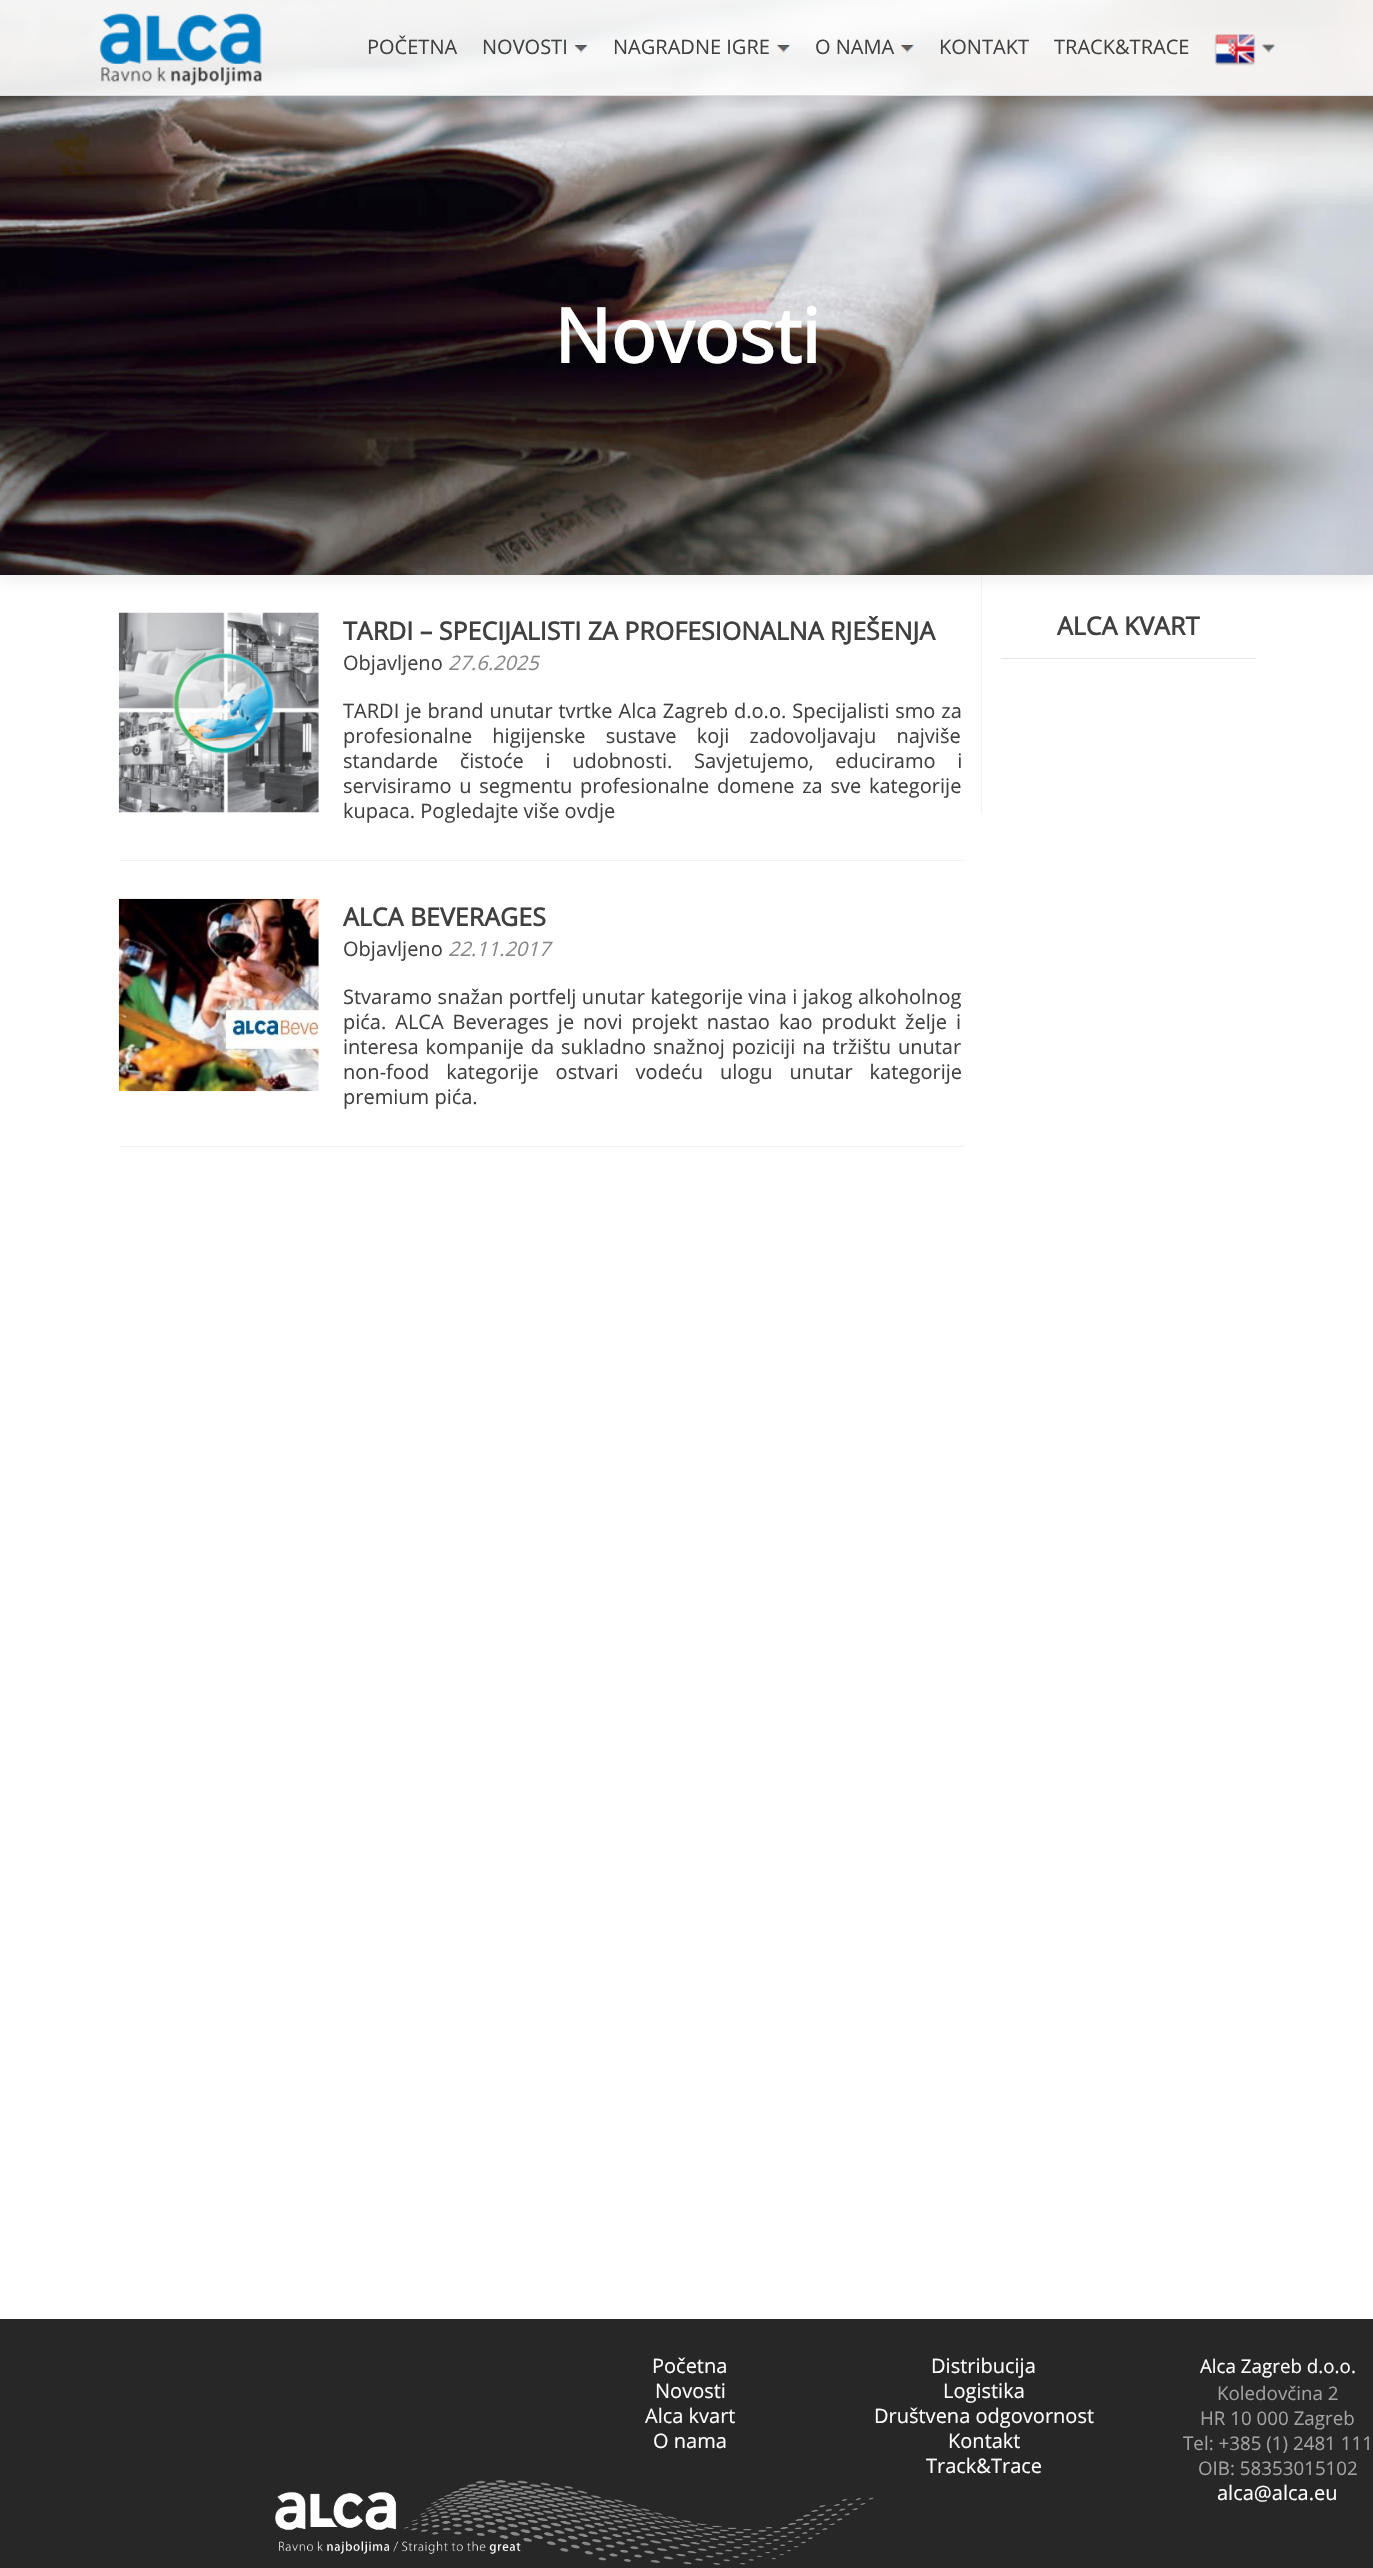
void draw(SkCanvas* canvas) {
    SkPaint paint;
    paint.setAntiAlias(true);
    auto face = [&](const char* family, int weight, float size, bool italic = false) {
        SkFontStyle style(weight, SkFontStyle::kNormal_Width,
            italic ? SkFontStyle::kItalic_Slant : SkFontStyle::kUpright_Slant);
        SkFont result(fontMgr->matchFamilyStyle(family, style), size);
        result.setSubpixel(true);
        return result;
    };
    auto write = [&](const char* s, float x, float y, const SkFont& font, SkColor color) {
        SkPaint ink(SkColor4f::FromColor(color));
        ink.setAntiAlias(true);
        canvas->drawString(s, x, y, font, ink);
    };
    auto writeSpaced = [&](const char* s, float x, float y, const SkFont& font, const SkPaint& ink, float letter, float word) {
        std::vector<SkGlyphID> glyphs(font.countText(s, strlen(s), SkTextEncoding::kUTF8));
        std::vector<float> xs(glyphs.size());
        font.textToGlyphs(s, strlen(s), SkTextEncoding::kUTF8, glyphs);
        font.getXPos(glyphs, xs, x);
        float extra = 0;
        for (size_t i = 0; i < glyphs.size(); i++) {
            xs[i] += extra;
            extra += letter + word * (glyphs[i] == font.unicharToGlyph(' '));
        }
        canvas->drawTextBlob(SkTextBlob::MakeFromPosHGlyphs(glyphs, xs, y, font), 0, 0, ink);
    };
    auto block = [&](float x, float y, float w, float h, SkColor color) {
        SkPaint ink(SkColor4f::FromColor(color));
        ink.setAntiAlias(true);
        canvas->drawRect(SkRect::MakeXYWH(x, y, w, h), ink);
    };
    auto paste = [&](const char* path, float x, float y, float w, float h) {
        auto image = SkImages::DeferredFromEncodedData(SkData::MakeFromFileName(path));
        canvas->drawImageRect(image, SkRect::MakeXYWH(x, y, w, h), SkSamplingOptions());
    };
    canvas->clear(SK_ColorWHITE);
    paint.setColor(SkColorSetARGB(20, 50, 50, 50));
    paint.setMaskFilter(SkMaskFilter::MakeBlur(kNormal_SkBlurStyle, 7));
    canvas->drawRect(SkRect::MakeXYWH(0, 6, 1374, 575), paint);
    paint.setMaskFilter(nullptr);
    paste("pic7.png", 0, 0, 1373, 575);
    canvas->save();
    canvas->clipRect(SkRect::MakeXYWH(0, 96, 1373, 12));
    paint.setMaskFilter(SkMaskFilter::MakeBlur(kNormal_SkBlurStyle, 7));
    canvas->drawRect(SkRect::MakeXYWH(0, 6, 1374, 97), paint);
    paint.setMaskFilter(nullptr);
    canvas->restore();
    block(0, 0, 1373, 95, SkColorSetARGB(230, 255, 255, 255));
    block(0, 95, 1373, 1, SkColorSetRGB(218, 223, 227));
    paste("pic1.png", 99, 13, 163, 73);
    auto kFont1 = face("Open Sans", 400, 20);
    write("POČETNA", 367, 54, kFont1, SkColorSetRGB(64, 64, 64));
    write("NOVOSTI", 482, 54, kFont1, SkColorSetRGB(64, 64, 64));
    paste("pic2.png", 575, 45, 13, 8);
    write("NAGRADNE IGRE", 613, 54, kFont1, SkColorSetRGB(64, 64, 64));
    paste("pic3.png", 777, 45, 13, 8);
    write("O NAMA", 815, 54, kFont1, SkColorSetRGB(64, 64, 64));
    paste("pic4.png", 901, 45, 13, 8);
    write("KONTAKT", 939, 54, kFont1, SkColorSetRGB(64, 64, 64));
    write("TRACK&TRACE", 1054, 54, kFont1, SkColorSetRGB(64, 64, 64));
    paste("pic5.png", 1214, 34, 42, 32);
    paste("pic6.png", 1261, 44, 15, 9);
    auto kFont2 = face("Open Sans", 700, 75);
    write("Novosti", 554, 363, kFont2, SK_ColorWHITE);
    block(119, 860, 844, 1, SkColorSetRGB(242, 242, 242));
    paste("pic8.png", 118, 612, 201, 201);
    auto kFont3 = face("Open Sans", 700, 25);
    write("TARDI – SPECIJALISTI ZA PROFESIONALNA RJEŠENJA", 343, 640, kFont3, SkColorSetRGB(64, 64, 64));
    write("Objavljeno", 343, 670, kFont1, SkColorSetRGB(64, 64, 64));
    auto kFont4 = face("Open Sans", 400, 20, true);
    write("27.6.2025", 448, 670, kFont4, SkColorSetRGB(136, 136, 136));
    paint.setColor(SkColorSetRGB(64, 64, 64));
    writeSpaced("TARDI je brand unutar tvrtke Alca Zagreb d.o.o. Specijalisti smo za", 343, 718, kFont1, paint, 0, 0.75f);
    writeSpaced("profesionalne higijenske sustave koji zadovoljavaju najviše", 343, 743, kFont1, paint, 0, 15);
    writeSpaced("standarde čistoće i udobnosti. Savjetujemo, educiramo i", 343, 768, kFont1, paint, 0, 16.5f);
    writeSpaced("servisiramo u segmentu profesionalne domene za sve kategorije", 343, 793, kFont1, paint, 0, 2.5f);
    write("kupaca. Pogledajte više ovdje", 343, 818, kFont1, SkColorSetRGB(64, 64, 64));
    block(119, 1146, 844, 1, SkColorSetRGB(242, 242, 242));
    paste("pic9.png", 118, 898, 201, 194);
    write("ALCA BEVERAGES", 343, 926, kFont3, SkColorSetRGB(64, 64, 64));
    write("Objavljeno", 343, 956, kFont1, SkColorSetRGB(64, 64, 64));
    write("22.11.2017", 448, 956, kFont4, SkColorSetRGB(136, 136, 136));
    writeSpaced("Stvaramo snažan portfelj unutar kategorije vina i jakog alkoholnog", 343, 1004, kFont1, paint, 0, 0.25f);
    writeSpaced("pića. ALCA Beverages je novi projekt nastao kao produkt želje i", 343, 1029, kFont1, paint, 0, 3.75f);
    writeSpaced("interesa kompanije da sukladno snažnoj poziciji na tržištu unutar", 343, 1054, kFont1, paint, 0, 1.75f);
    writeSpaced("non-food kategorije ostvari vodeću ulogu unutar kategorije", 343, 1079, kFont1, paint, 0, 11.75f);
    write("premium pića.", 343, 1104, kFont1, SkColorSetRGB(64, 64, 64));
    block(981, 575, 1, 239, SkColorSetARGB(13, 0, 0, 0));
    write("ALCA KVART", 1057, 635, kFont3, SkColorSetRGB(64, 64, 64));
    block(1001, 658, 255, 1, SkColorSetRGB(229, 229, 229));
    block(0, 2319, 1373, 249, SkColorSetRGB(39, 39, 39));
    paste("pic10.png", 275, 2480, 599, 85);
    write("Početna", 652, 2373, kFont1, SK_ColorWHITE);
    write("Novosti", 655, 2398, kFont1, SK_ColorWHITE);
    write("Alca kvart", 645, 2423, kFont1, SK_ColorWHITE);
    write("O nama", 653, 2448, kFont1, SK_ColorWHITE);
    write("Distribucija", 931, 2373, kFont1, SK_ColorWHITE);
    write("Logistika", 943, 2398, kFont1, SK_ColorWHITE);
    write("Društvena odgovornost", 874, 2423, kFont1, SK_ColorWHITE);
    write("Kontakt", 948, 2448, kFont1, SK_ColorWHITE);
    write("Track&Trace", 926, 2473, kFont1, SK_ColorWHITE);
    auto kFont5 = face("Open Sans", 400, 18.75f);
    write("Alca Zagreb d.o.o.", 1200, 2373, kFont5, SK_ColorWHITE);
    write("Koledovčina 2", 1217, 2400, kFont5, SkColorSetRGB(162, 162, 162));
    write("HR 10 000 Zagreb", 1200, 2425, kFont5, SkColorSetRGB(162, 162, 162));
    write("Tel: +385 (1) 2481 111", 1183, 2450, kFont5, SkColorSetRGB(162, 162, 162));
    write("OIB: 58353015102", 1198, 2475, kFont5, SkColorSetRGB(162, 162, 162));
    write("alca@alca.eu", 1217, 2500, kFont1, SK_ColorWHITE);
}
